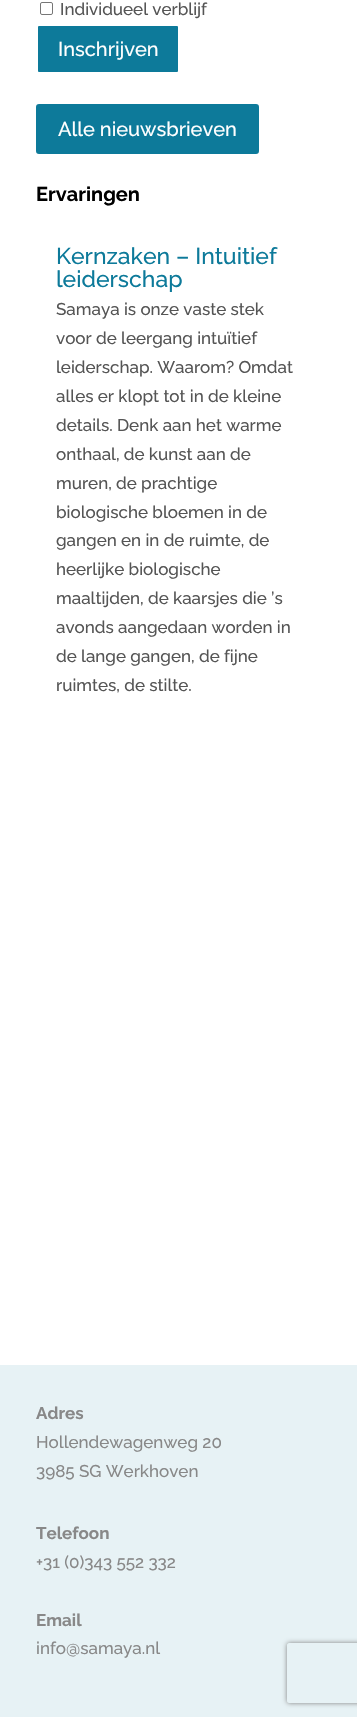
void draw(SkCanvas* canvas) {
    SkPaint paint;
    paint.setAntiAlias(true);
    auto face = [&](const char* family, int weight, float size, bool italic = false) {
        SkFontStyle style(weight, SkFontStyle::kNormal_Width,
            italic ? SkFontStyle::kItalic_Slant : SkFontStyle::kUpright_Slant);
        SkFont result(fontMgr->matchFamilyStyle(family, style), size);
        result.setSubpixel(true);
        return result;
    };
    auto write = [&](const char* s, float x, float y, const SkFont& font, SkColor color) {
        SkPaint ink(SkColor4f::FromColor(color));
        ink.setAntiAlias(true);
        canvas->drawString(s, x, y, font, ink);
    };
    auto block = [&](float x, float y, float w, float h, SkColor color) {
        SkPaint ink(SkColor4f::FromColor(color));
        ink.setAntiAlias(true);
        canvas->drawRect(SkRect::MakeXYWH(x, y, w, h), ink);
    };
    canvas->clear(SK_ColorWHITE);
    paint.setStyle(SkPaint::kStroke_Style);
    paint.setStrokeWidth(1);
    paint.setColor(SkColorSetRGB(118, 118, 118));
    canvas->drawRoundRect(SkRect::MakeXYWH(40.5f, 2.5f, 12, 12), 1.5f, 1.5f, paint);
    auto kFont1 = face("Raleway", 500, 17);
    write("Individueel verblijf", 60, 15, kFont1, SkColorSetRGB(85, 85, 85));
    paint.setStyle(SkPaint::kFill_Style);
    paint.setColor(SkColorSetRGB(13, 122, 154));
    canvas->drawRoundRect(SkRect::MakeXYWH(37, 25, 142, 48), 2, 2, paint);
    paint.setStyle(SkPaint::kStroke_Style);
    paint.setStrokeWidth(2);
    paint.setColor(SK_ColorWHITE);
    canvas->drawRoundRect(SkRect::MakeXYWH(37, 25, 142, 48), 2, 2, paint);
    auto kFont2 = face("Raleway", 500, 20);
    write("Inschrijven", 58, 56, kFont2, SK_ColorWHITE);
    paint.setStyle(SkPaint::kFill_Style);
    paint.setColor(SkColorSetRGB(13, 122, 154));
    canvas->drawRoundRect(SkRect::MakeXYWH(37, 105, 221, 48), 2, 2, paint);
    paint.setStyle(SkPaint::kStroke_Style);
    canvas->drawRoundRect(SkRect::MakeXYWH(37, 105, 221, 48), 2, 2, paint);
    write("Alle nieuwsbrieven", 58, 136, kFont2, SK_ColorWHITE);
    auto kFont3 = face("Raleway", 700, 20);
    write("Ervaringen", 36, 201, kFont3, SK_ColorBLACK);
    auto kFont4 = face("Raleway", 500, 23);
    write("Kernzaken – Intuitief", 56, 264, kFont4, SkColorSetRGB(13, 122, 154));
    write("leiderschap", 56, 287, kFont4, SkColorSetRGB(13, 122, 154));
    write("Samaya is onze vaste stek", 56, 315, kFont1, SkColorSetRGB(85, 85, 85));
    write("voor de leergang intuïtief", 56, 344, kFont1, SkColorSetRGB(85, 85, 85));
    write("leiderschap. Waarom? Omdat", 56, 373, kFont1, SkColorSetRGB(85, 85, 85));
    write("alles er klopt tot in de kleine", 56, 402, kFont1, SkColorSetRGB(85, 85, 85));
    write("details. Denk aan het warme", 56, 431, kFont1, SkColorSetRGB(85, 85, 85));
    write("onthaal, de kunst aan de", 56, 460, kFont1, SkColorSetRGB(85, 85, 85));
    write("muren, de prachtige", 56, 489, kFont1, SkColorSetRGB(85, 85, 85));
    write("biologische bloemen in de", 56, 518, kFont1, SkColorSetRGB(85, 85, 85));
    write("gangen en in de ruimte, de", 56, 546, kFont1, SkColorSetRGB(85, 85, 85));
    write("heerlijke biologische", 56, 575, kFont1, SkColorSetRGB(85, 85, 85));
    write("maaltijden, de kaarsjes die ’s", 56, 604, kFont1, SkColorSetRGB(85, 85, 85));
    write("avonds aangedaan worden in", 56, 633, kFont1, SkColorSetRGB(85, 85, 85));
    write("de lange gangen, de fijne", 56, 662, kFont1, SkColorSetRGB(85, 85, 85));
    write("ruimtes, de stilte.", 56, 691, kFont1, SkColorSetRGB(85, 85, 85));
    block(0, 1365, 357, 352, SkColorSetRGB(231, 242, 245));
    auto kFont5 = face("Raleway", 700, 17);
    write("Adres", 36, 1419, kFont5, SkColorSetRGB(136, 136, 136));
    write("Hollendewagenweg 20", 36, 1448, kFont1, SkColorSetRGB(136, 136, 136));
    write("3985 SG Werkhoven", 36, 1477, kFont1, SkColorSetRGB(136, 136, 136));
    write("Telefoon", 36, 1539, kFont5, SkColorSetRGB(136, 136, 136));
    write("+31 (0)343 552 332", 36, 1568, kFont1, SkColorSetRGB(136, 136, 136));
    write("Email", 36, 1626, kFont5, SkColorSetRGB(136, 136, 136));
    write("info@samaya.nl", 36, 1654, kFont1, SkColorSetRGB(136, 136, 136));
    canvas->save();
    canvas->clipPath(SkPathBuilder(SkPathFillType::kEvenOdd).moveTo(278, 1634).lineTo(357, 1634).lineTo(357, 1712).lineTo(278, 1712).close().moveTo(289, 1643).lineTo(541, 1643).cubicTo(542, 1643, 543, 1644, 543, 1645).lineTo(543, 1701).cubicTo(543, 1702, 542, 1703, 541, 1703).lineTo(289, 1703).cubicTo(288, 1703, 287, 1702, 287, 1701).lineTo(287, 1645).cubicTo(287, 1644, 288, 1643, 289, 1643).close().detach(), true);
    paint.setStyle(SkPaint::kFill_Style);
    paint.setColor(SkColorSetRGB(128, 128, 128));
    paint.setMaskFilter(SkMaskFilter::MakeBlur(kNormal_SkBlurStyle, 2.5f));
    canvas->drawRoundRect(SkRect::MakeXYWH(287, 1643, 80, 60), 2, 2, paint);
    paint.setMaskFilter(nullptr);
    canvas->restore();
}
